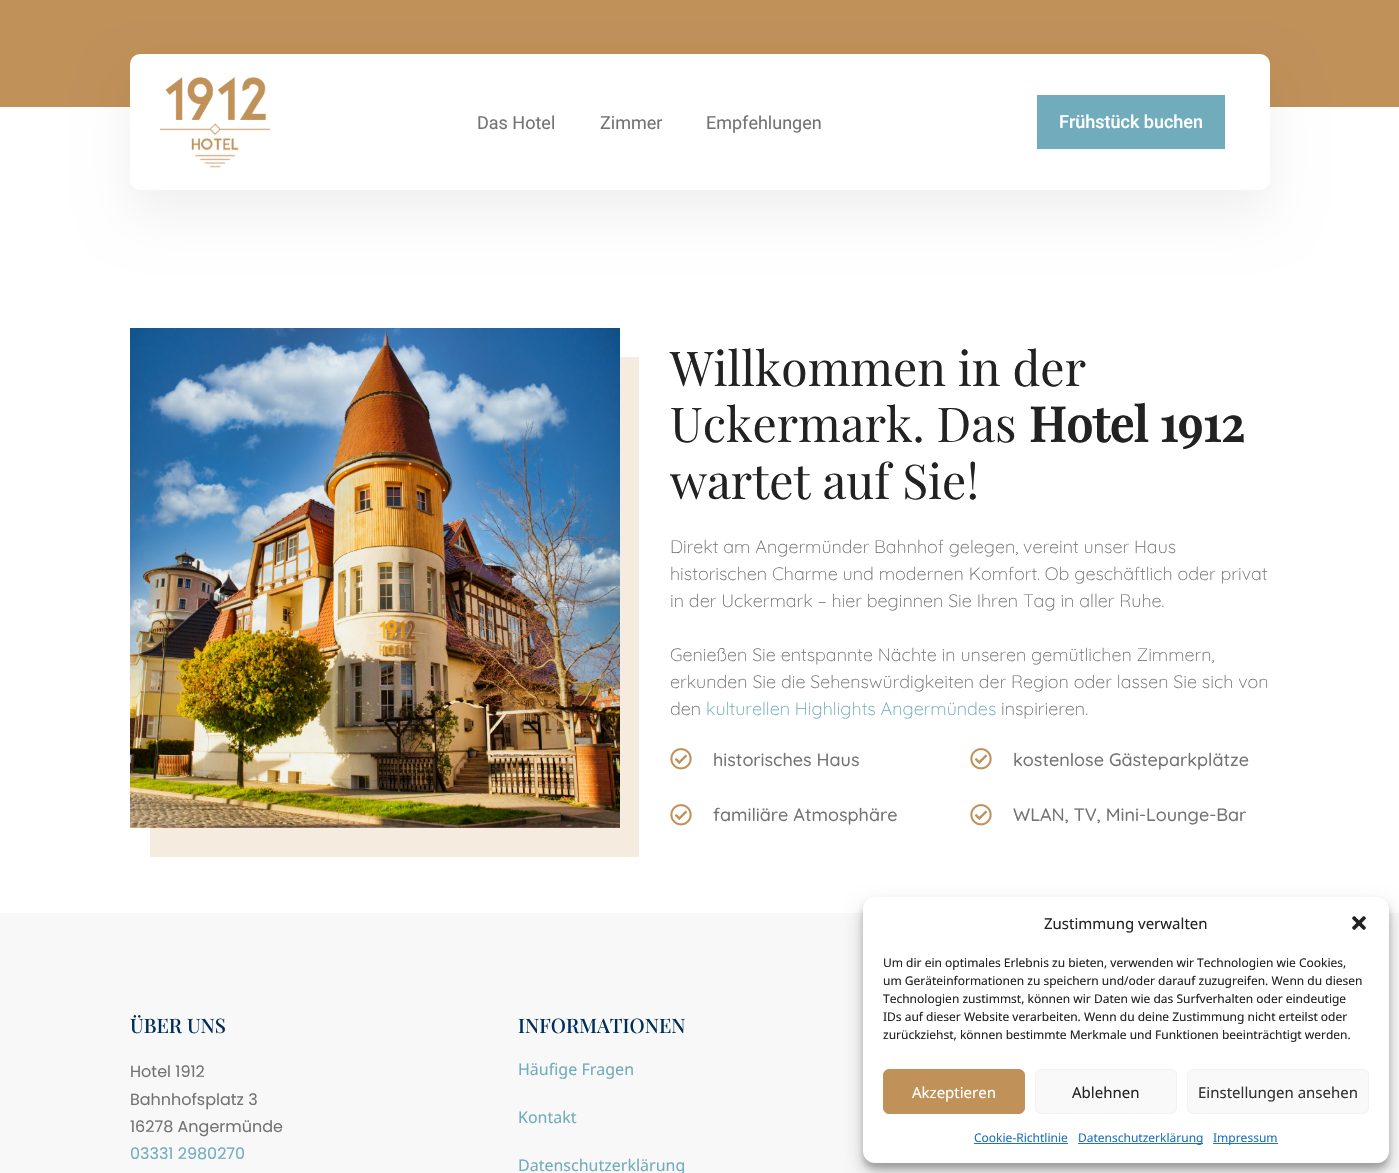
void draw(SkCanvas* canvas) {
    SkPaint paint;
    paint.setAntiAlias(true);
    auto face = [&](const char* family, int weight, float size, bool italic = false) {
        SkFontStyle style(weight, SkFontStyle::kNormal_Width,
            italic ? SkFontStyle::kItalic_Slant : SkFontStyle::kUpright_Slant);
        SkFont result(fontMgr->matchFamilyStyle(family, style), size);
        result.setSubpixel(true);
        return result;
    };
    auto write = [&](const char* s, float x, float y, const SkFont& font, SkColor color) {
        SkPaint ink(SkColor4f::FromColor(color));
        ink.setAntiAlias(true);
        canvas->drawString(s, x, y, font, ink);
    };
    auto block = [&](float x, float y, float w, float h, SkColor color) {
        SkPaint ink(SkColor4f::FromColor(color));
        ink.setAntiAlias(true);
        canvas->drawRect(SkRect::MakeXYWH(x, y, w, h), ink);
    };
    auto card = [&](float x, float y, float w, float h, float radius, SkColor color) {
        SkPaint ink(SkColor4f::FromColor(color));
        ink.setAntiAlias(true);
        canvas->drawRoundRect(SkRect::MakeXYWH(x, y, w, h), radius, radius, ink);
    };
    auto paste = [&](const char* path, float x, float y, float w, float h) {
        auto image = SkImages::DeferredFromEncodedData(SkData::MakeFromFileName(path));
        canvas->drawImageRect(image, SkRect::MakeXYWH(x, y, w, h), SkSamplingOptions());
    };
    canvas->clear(SK_ColorWHITE);
    block(0, 0, 1399, 107, SkColorSetRGB(192, 145, 89));
    paint.setColor(SkColorSetARGB(15, 0, 0, 0));
    paint.setMaskFilter(SkMaskFilter::MakeBlur(kNormal_SkBlurStyle, 25));
    canvas->drawRoundRect(SkRect::MakeXYWH(130, 79, 1140, 136), 10, 10, paint);
    paint.setMaskFilter(nullptr);
    card(130, 54, 1140, 136, 10, SK_ColorWHITE);
    paste("pic1.png", 160, 77, 110, 91);
    auto kFont1 = face("Roboto", 400, 18);
    write("Das Hotel", 477, 129, kFont1, SkColorSetRGB(115, 115, 115));
    write("Zimmer", 600, 129, kFont1, SkColorSetRGB(115, 115, 115));
    write("Empfehlungen", 706, 129, kFont1, SkColorSetRGB(115, 115, 115));
    paint.setColor(SkColorSetARGB(13, 16, 24, 40));
    paint.setMaskFilter(SkMaskFilter::MakeBlur(kNormal_SkBlurStyle, 1));
    canvas->drawRect(SkRect::MakeXYWH(1037, 96, 188, 54), paint);
    paint.setMaskFilter(nullptr);
    block(1037, 95, 188, 54, SkColorSetRGB(112, 172, 188));
    auto kFont2 = face("Roboto", 500, 18);
    write("Frühstück buchen", 1059, 128, kFont2, SK_ColorWHITE);
    paint.setColor(SkColorSetRGB(245, 235, 223));
    canvas->drawPath(SkPathBuilder().moveTo(150, 828).lineTo(150, 857).lineTo(639, 857).lineTo(639, 357).lineTo(619, 357).lineTo(619, 828).close().detach(), paint);
    paste("pic2.png", 130, 328, 490, 500);
    auto kFont3 = face("Playfair Display", 400, 48);
    write("Willkommen in der", 670, 386, kFont3, SkColorSetRGB(34, 34, 34));
    write("Uckermark. Das", 670, 442, kFont3, SkColorSetRGB(34, 34, 34));
    auto kFont4 = face("Playfair Display", 700, 48);
    write("Hotel 1912", 1029, 442, kFont4, SkColorSetRGB(34, 34, 34));
    write("wartet auf Sie!", 670, 499, kFont3, SkColorSetRGB(34, 34, 34));
    auto kFont5 = face("Quicksand", 300, 18);
    write("Direkt am Angermünder Bahnhof gelegen, vereint unser Haus", 670, 553, kFont5, SkColorSetRGB(115, 115, 115));
    write("historischen Charme und modernen Komfort. Ob geschäftlich oder privat", 670, 580, kFont5, SkColorSetRGB(115, 115, 115));
    write("in der Uckermark – hier beginnen Sie Ihren Tag in aller Ruhe.", 670, 607, kFont5, SkColorSetRGB(115, 115, 115));
    write("Genießen Sie entspannte Nächte in unseren gemütlichen Zimmern,", 670, 661, kFont5, SkColorSetRGB(115, 115, 115));
    write("erkunden Sie die Sehenswürdigkeiten der Region oder lassen Sie sich von", 670, 688, kFont5, SkColorSetRGB(115, 115, 115));
    write("den", 670, 715, kFont5, SkColorSetRGB(115, 115, 115));
    write("kulturellen Highlights Angermündes", 706, 715, kFont5, SkColorSetRGB(112, 172, 188));
    write("inspirieren.", 1001, 715, kFont5, SkColorSetRGB(115, 115, 115));
    paste("pic3.png", 670, 748, 22, 22);
    auto kFont6 = face("Quicksand", 500, 18);
    write("historisches Haus", 713, 766, kFont6, SkColorSetRGB(115, 115, 115));
    paste("pic3.png", 670, 804, 22, 22);
    write("familiäre Atmosphäre", 713, 821, kFont6, SkColorSetRGB(115, 115, 115));
    paste("pic3.png", 970, 748, 22, 22);
    write("kostenlose Gästeparkplätze", 1013, 766, kFont6, SkColorSetRGB(115, 115, 115));
    paste("pic3.png", 970, 804, 22, 22);
    write("WLAN, TV, Mini-Lounge-Bar", 1013, 821, kFont6, SkColorSetRGB(115, 115, 115));
    block(0, 913, 1399, 260, SkColorSetRGB(248, 248, 248));
    auto kFont7 = face("Playfair Display", 500, 20);
    write("ÜBER UNS", 130, 1033, kFont7, SkColorSetRGB(0, 46, 91));
    auto kFont8 = face("Poppins", 400, 16);
    write("Hotel 1912", 130, 1077, kFont8, SkColorSetRGB(115, 115, 115));
    write("Bahnhofsplatz 3", 130, 1105, kFont8, SkColorSetRGB(115, 115, 115));
    write("16278 Angermünde", 130, 1132, kFont8, SkColorSetRGB(115, 115, 115));
    write("03331 2980270", 130, 1159, kFont8, SkColorSetRGB(112, 172, 188));
    write("INFORMATIONEN", 518, 1033, kFont7, SkColorSetRGB(0, 46, 91));
    auto kFont9 = face("Noto Sans", 400, 16);
    write("Häufige Fragen", 518, 1075, kFont9, SkColorSetRGB(112, 172, 188));
    write("Kontakt", 518, 1123, kFont9, SkColorSetRGB(112, 172, 188));
    write("Datenschutzerklärung", 518, 1171, kFont9, SkColorSetRGB(112, 172, 188));
    paint.setColor(SkColorSetARGB(59, 0, 0, 0));
    paint.setMaskFilter(SkMaskFilter::MakeBlur(kNormal_SkBlurStyle, 3));
    canvas->drawRoundRect(SkRect::MakeXYWH(863, 903, 526, 266), 12, 12, paint);
    paint.setMaskFilter(nullptr);
    paint.setColor(SkColorSetARGB(48, 0, 0, 0));
    paint.setMaskFilter(SkMaskFilter::MakeBlur(kNormal_SkBlurStyle, 10));
    canvas->drawRoundRect(SkRect::MakeXYWH(863, 907, 526, 266), 12, 12, paint);
    paint.setMaskFilter(nullptr);
    card(863, 897, 526, 266, 12, SK_ColorWHITE);
    auto kFont10 = face("Noto Sans", 400, 15);
    write("Zustimmung verwalten", 1044, 929, kFont10, SkColorSetRGB(34, 34, 34));
    paste("pic4.png", 1352, 916, 14, 14);
    auto kFont11 = face("Noto Sans", 400, 12);
    write("Um dir ein optimales Erlebnis zu bieten, verwenden wir Technologien wie Cookies,", 883, 967, kFont11, SkColorSetRGB(34, 34, 34));
    write("um Geräteinformationen zu speichern und/oder darauf zuzugreifen. Wenn du diesen", 883, 985, kFont11, SkColorSetRGB(34, 34, 34));
    write("Technologien zustimmst, können wir Daten wie das Surfverhalten oder eindeutige", 883, 1003, kFont11, SkColorSetRGB(34, 34, 34));
    write("IDs auf dieser Website verarbeiten. Wenn du deine Zustimmung nicht erteilst oder", 883, 1021, kFont11, SkColorSetRGB(34, 34, 34));
    write("zurückziehst, können bestimmte Merkmale und Funktionen beeinträchtigt werden.", 883, 1039, kFont11, SkColorSetRGB(34, 34, 34));
    paint.setColor(SkColorSetRGB(192, 145, 89));
    canvas->drawRoundRect(SkRect::MakeXYWH(883.5f, 1069.5f, 141, 44), 5.5f, 5.5f, paint);
    paint.setStyle(SkPaint::kStroke_Style);
    paint.setStrokeWidth(1);
    canvas->drawRoundRect(SkRect::MakeXYWH(883.5f, 1069.5f, 141, 44), 5.5f, 5.5f, paint);
    write("Akzeptieren", 912, 1098, kFont10, SK_ColorWHITE);
    paint.setStyle(SkPaint::kFill_Style);
    paint.setColor(SkColorSetRGB(249, 249, 249));
    canvas->drawRoundRect(SkRect::MakeXYWH(1035.5f, 1069.5f, 141, 44), 5.5f, 5.5f, paint);
    paint.setStyle(SkPaint::kStroke_Style);
    paint.setColor(SkColorSetRGB(242, 242, 242));
    canvas->drawRoundRect(SkRect::MakeXYWH(1035.5f, 1069.5f, 141, 44), 5.5f, 5.5f, paint);
    write("Ablehnen", 1072, 1098, kFont10, SkColorSetRGB(34, 34, 34));
    paint.setStyle(SkPaint::kFill_Style);
    paint.setColor(SkColorSetRGB(249, 249, 249));
    canvas->drawRoundRect(SkRect::MakeXYWH(1187.5f, 1069.5f, 181, 44), 5.5f, 5.5f, paint);
    paint.setStyle(SkPaint::kStroke_Style);
    paint.setColor(SkColorSetRGB(242, 242, 242));
    canvas->drawRoundRect(SkRect::MakeXYWH(1187.5f, 1069.5f, 181, 44), 5.5f, 5.5f, paint);
    write("Einstellungen ansehen", 1198, 1098, kFont10, SkColorSetRGB(51, 51, 51));
    write("Cookie-Richtlinie", 974, 1142, kFont11, SkColorSetRGB(30, 115, 190));
    block(974, 1143, 94, 1, SkColorSetRGB(30, 115, 190));
    block(1078, 1143, 125, 1, SkColorSetRGB(30, 115, 190));
    write("Datenschutzerklärung", 1078, 1142, kFont11, SkColorSetRGB(30, 115, 190));
    block(1213, 1143, 65, 1, SkColorSetRGB(30, 115, 190));
    write("Impressum", 1213, 1142, kFont11, SkColorSetRGB(30, 115, 190));
}
